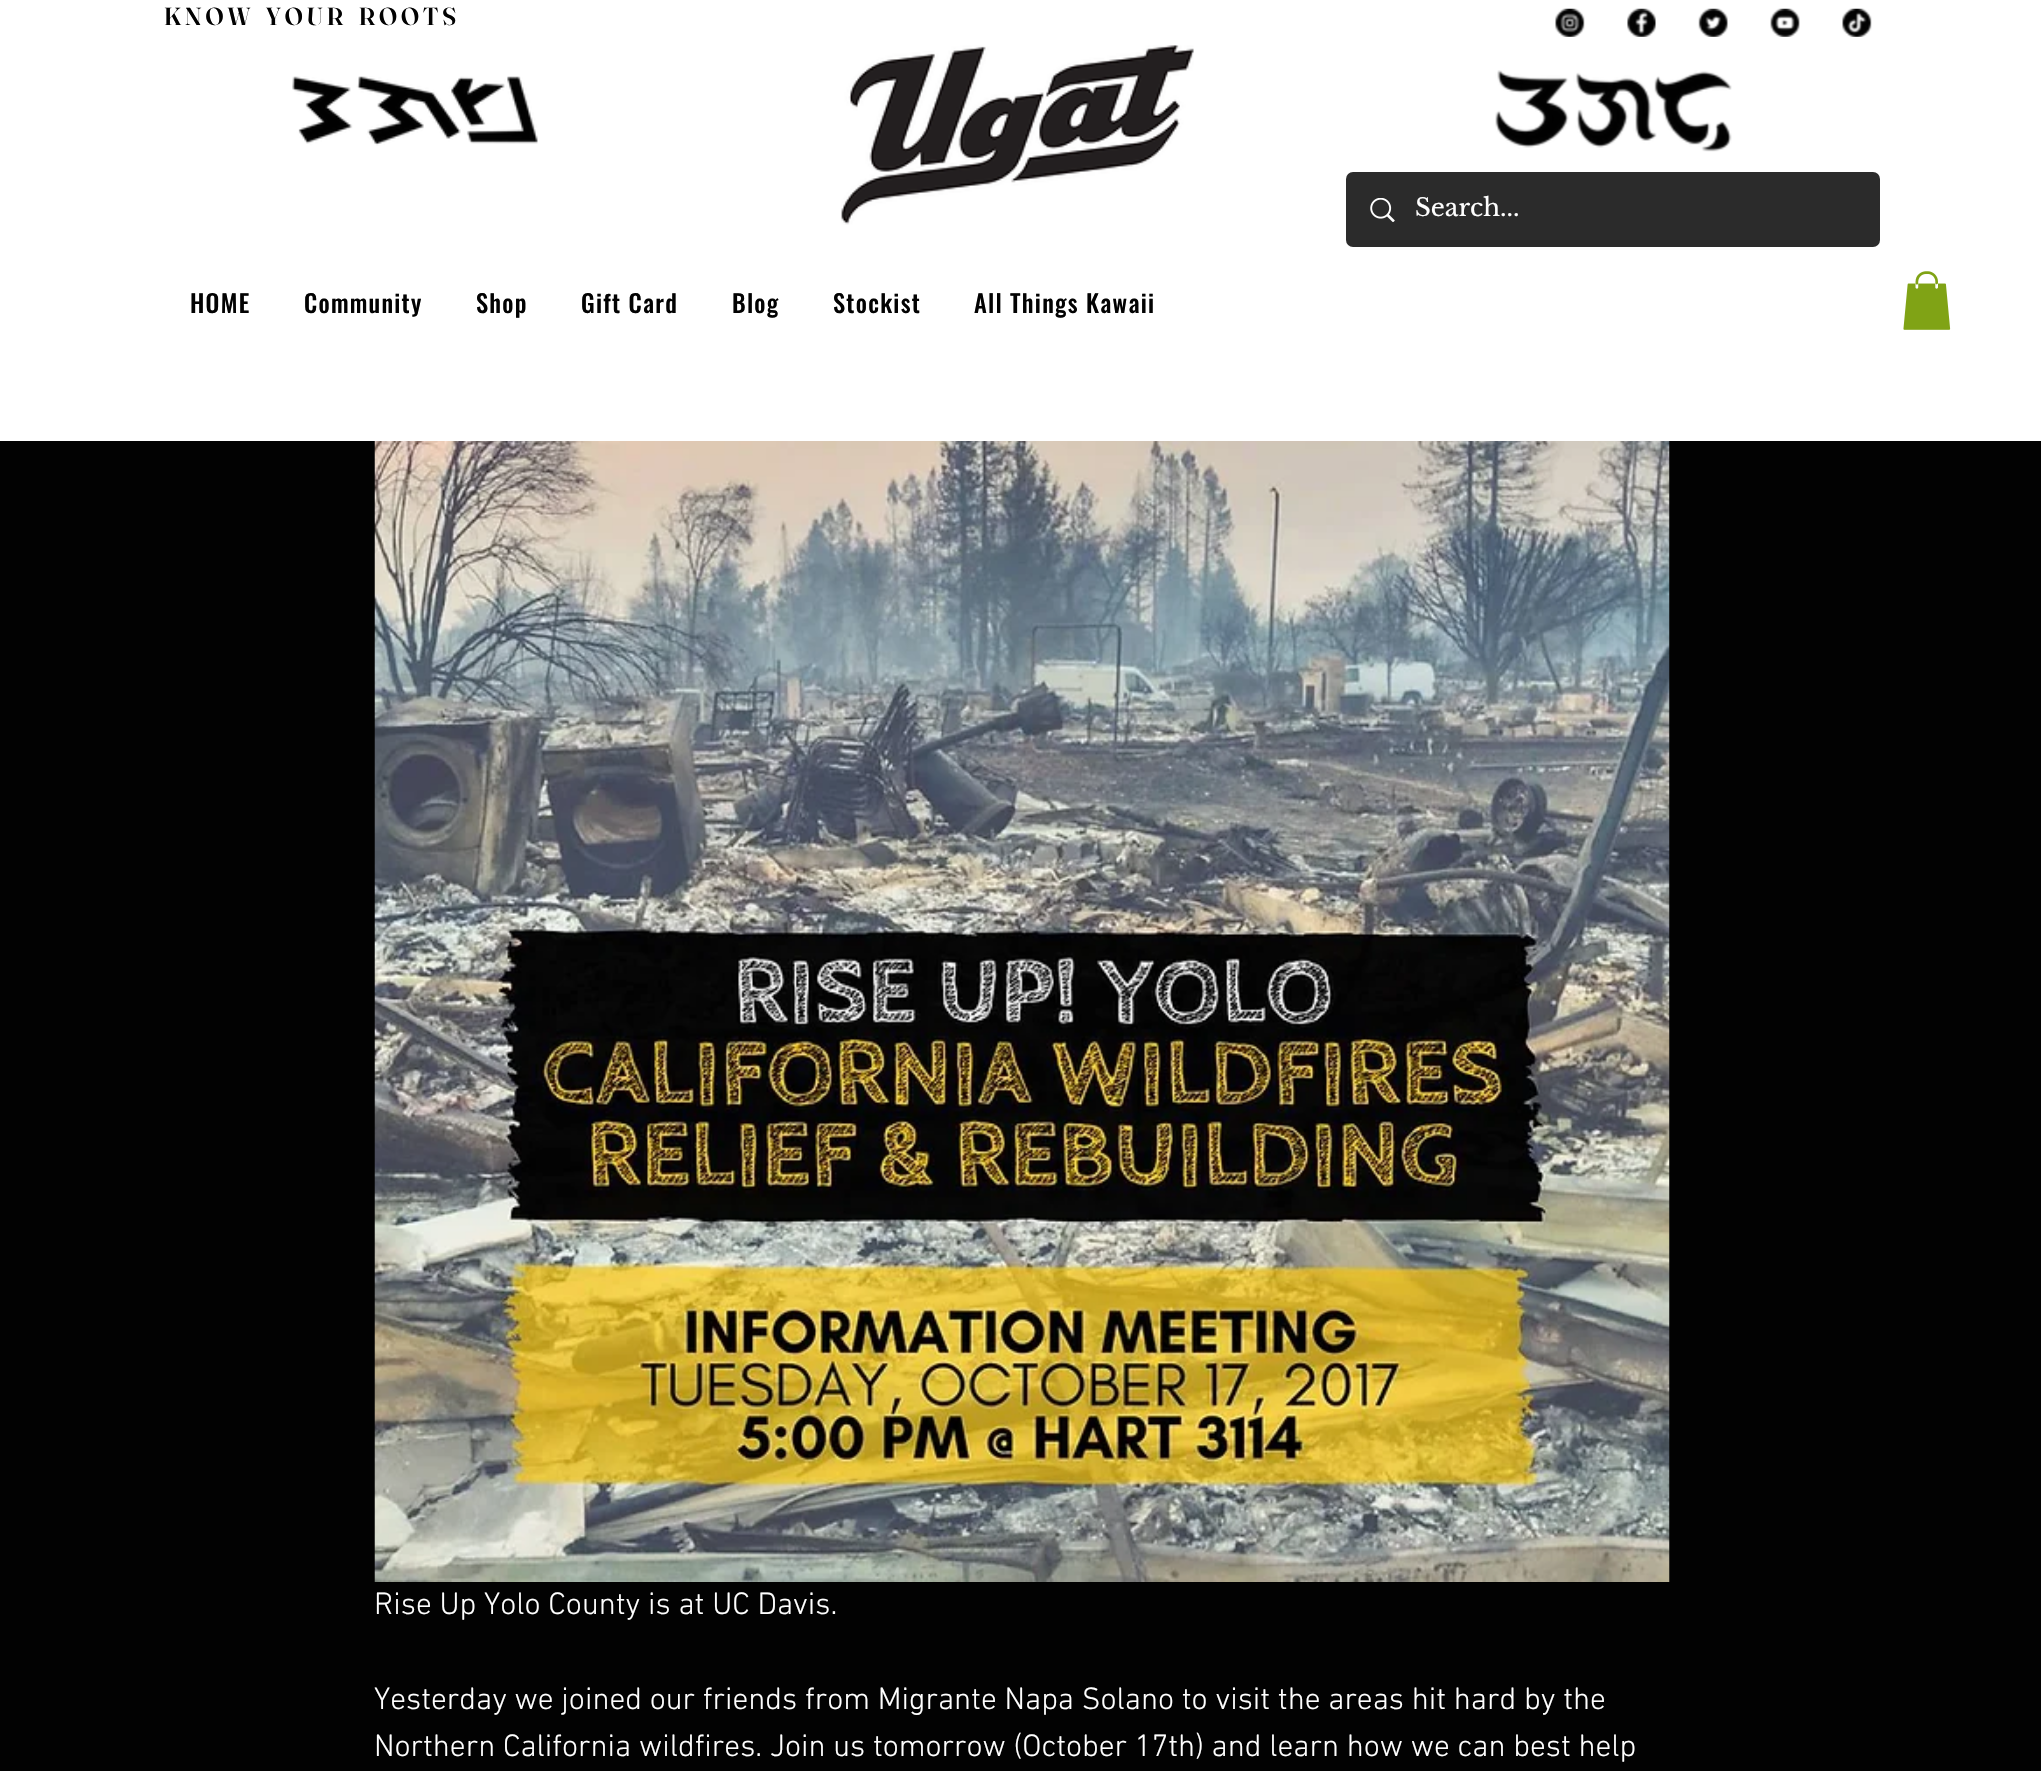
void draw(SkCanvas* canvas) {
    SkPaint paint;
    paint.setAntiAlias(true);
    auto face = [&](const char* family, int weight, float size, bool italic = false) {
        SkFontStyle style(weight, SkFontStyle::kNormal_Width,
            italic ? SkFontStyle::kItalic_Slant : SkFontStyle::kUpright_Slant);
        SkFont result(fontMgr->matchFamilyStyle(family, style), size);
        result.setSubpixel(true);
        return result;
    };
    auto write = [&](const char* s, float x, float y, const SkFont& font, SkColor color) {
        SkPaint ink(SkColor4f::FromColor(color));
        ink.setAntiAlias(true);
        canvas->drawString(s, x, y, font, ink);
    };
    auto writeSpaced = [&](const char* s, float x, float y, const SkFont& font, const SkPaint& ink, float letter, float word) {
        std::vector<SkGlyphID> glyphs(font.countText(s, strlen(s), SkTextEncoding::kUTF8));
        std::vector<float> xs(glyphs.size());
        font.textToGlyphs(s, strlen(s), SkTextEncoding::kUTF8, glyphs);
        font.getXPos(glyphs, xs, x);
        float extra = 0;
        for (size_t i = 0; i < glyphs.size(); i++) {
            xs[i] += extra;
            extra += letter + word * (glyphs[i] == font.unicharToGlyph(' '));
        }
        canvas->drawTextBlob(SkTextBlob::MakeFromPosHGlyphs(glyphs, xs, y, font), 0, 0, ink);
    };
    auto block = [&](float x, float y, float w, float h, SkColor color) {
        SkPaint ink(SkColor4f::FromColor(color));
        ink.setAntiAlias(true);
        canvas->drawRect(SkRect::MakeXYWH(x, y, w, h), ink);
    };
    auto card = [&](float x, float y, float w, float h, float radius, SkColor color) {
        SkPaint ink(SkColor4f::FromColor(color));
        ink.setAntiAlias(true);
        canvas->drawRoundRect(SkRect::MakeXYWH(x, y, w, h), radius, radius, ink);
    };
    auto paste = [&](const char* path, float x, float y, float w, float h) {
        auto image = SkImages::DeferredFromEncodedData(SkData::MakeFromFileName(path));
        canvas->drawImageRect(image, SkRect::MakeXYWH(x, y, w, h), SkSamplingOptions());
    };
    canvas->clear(SkColorSetRGB(2, 2, 2));
    block(0, 0, 2041, 441, SK_ColorWHITE);
    auto kFont1 = face("Fraunces", 600, 24.5f);
    write("K N O W    Y O U R    R O O T S", 164, 25, kFont1, SkColorSetRGB(2, 2, 2));
    paste("pic1.png", 1555, 8, 30, 29);
    paste("pic2.png", 1627, 8, 29, 29);
    paste("pic3.png", 1698, 8, 30, 29);
    paste("pic4.png", 1770, 8, 30, 29);
    paste("pic5.png", 1842, 8, 30, 29);
    paste("pic6.png", 292, 76, 246, 70);
    paste("pic7.png", 841, 45, 353, 180);
    paste("pic8.png", 1495, 70, 237, 82);
    card(1346, 172, 534, 75, 7, SkColorSetRGB(43, 43, 43));
    paste("pic9.png", 1370, 198, 25, 24);
    auto kFont2 = face("Libre Baskerville", 400, 24.5f);
    write("Search...", 1415, 216, kFont2, SK_ColorWHITE);
    auto kFont3 = face("Oswald", 500, 24.5f);
    paint.setColor(SkColorSetRGB(2, 2, 2));
    writeSpaced("HOME", 190, 313, kFont3, paint, 1.25f, 0);
    writeSpaced("Community", 304, 313, kFont3, paint, 1.25f, 0);
    writeSpaced("Shop", 476, 313, kFont3, paint, 1.25f, 0);
    writeSpaced("Gift Card", 581, 313, kFont3, paint, 1.25f, 0);
    writeSpaced("Blog", 732, 313, kFont3, paint, 1.25f, 0);
    writeSpaced("Stockist", 833, 313, kFont3, paint, 1.25f, 0);
    writeSpaced("All Things Kawaii", 974, 313, kFont3, paint, 1.25f, 0);
    paste("pic10.png", 1903, 271, 48, 59);
    paste("pic11.png", 374, 441, 1296, 1141);
    auto kFont4 = face("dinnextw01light", 300, 31.5f);
    write("Rise Up Yolo County is at UC Davis.", 374, 1614, kFont4, SK_ColorWHITE);
    write("Yesterday we joined our friends from Migrante Napa Solano to visit the areas hit hard by the", 374, 1709, kFont4, SK_ColorWHITE);
    write("Northern California wildfires. Join us tomorrow (October 17th) and learn how we can best help", 374, 1756, kFont4, SK_ColorWHITE);
}
